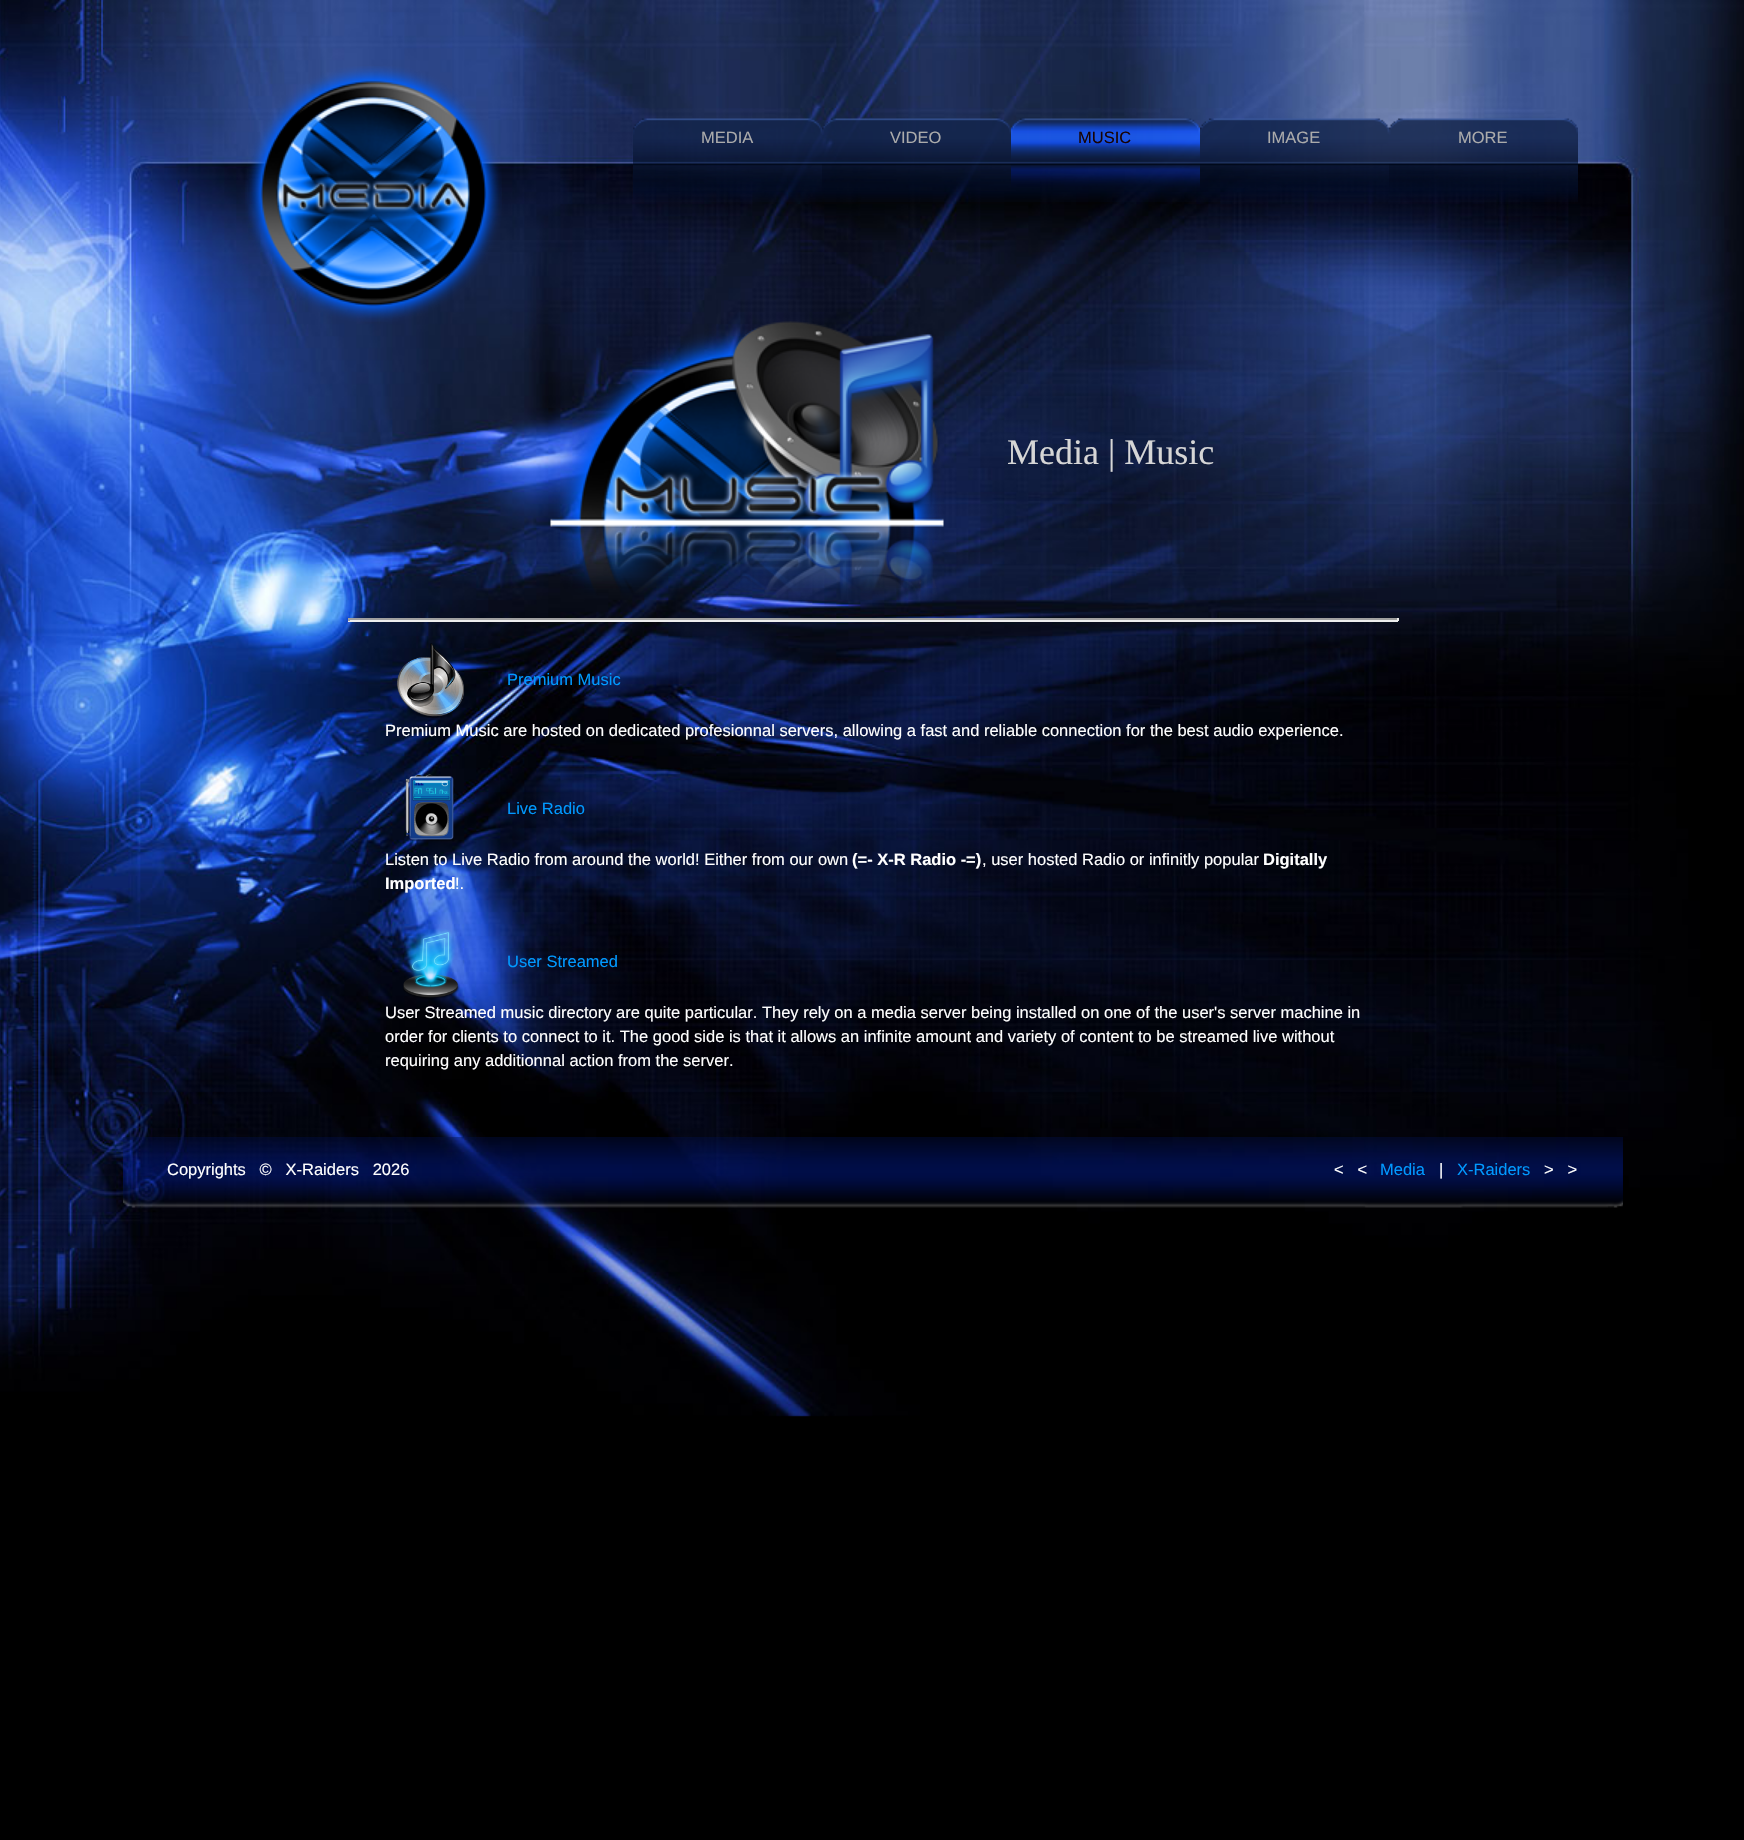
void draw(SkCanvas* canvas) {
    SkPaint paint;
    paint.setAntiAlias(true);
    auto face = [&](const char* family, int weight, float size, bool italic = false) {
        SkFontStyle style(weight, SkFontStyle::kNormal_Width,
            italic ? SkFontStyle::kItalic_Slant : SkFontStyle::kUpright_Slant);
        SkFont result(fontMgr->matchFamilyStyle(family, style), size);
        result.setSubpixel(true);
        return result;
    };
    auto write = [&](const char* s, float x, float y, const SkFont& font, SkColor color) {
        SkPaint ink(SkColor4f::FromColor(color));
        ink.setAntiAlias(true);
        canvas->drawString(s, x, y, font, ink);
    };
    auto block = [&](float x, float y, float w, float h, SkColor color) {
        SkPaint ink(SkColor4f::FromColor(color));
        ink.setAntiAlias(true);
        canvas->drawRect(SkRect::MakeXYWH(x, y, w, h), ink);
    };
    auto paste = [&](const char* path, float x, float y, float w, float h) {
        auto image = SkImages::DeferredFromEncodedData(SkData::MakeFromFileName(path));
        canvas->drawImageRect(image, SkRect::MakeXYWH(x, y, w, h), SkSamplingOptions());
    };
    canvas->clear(SK_ColorBLACK);
    paste("pic1.png", 0, 0, 1744, 1417);
    paste("pic2.png", 245, 66, 257, 256);
    paste("pic3.png", 633, 118, 189, 84);
    auto kFont1 = face("Liberation Sans", 400, 16.5f);
    write("MEDIA", 701, 143, kFont1, SkColorSetRGB(171, 171, 171));
    paste("pic4.png", 822, 118, 189, 84);
    write("VIDEO", 890, 143, kFont1, SkColorSetRGB(171, 171, 171));
    paste("pic5.png", 1011, 118, 189, 84);
    write("MUSIC", 1078, 143, kFont1, SkColorSetRGB(24, 2, 2));
    paste("pic6.png", 1200, 118, 189, 84);
    write("IMAGE", 1267, 143, kFont1, SkColorSetRGB(171, 171, 171));
    paste("pic7.png", 1389, 118, 189, 84);
    write("MORE", 1458, 143, kFont1, SkColorSetRGB(171, 171, 171));
    paste("pic8.png", 550, 321, 394, 279);
    auto kFont2 = face("Liberation Serif", 400, 36);
    write("Media | Music", 1007, 464, kFont2, SkColorSetRGB(214, 214, 214));
    block(348, 618, 1050, 2, SkColorSetRGB(159, 159, 159));
    block(1397, 618, 2, 3, SkColorSetRGB(238, 238, 238));
    block(348, 620, 1050, 2, SkColorSetRGB(238, 238, 238));
    block(348, 618, 2, 3, SkColorSetRGB(159, 159, 159));
    paste("pic9.png", 397, 643, 67, 75);
    write("Premium Music", 507, 685, kFont1, SkColorSetRGB(0, 153, 255));
    write("Premium Music are hosted on dedicated profesionnal servers, allowing a fast and reliable connection for the best audio experience.", 385, 736, kFont1, SK_ColorWHITE);
    paste("pic10.png", 405, 774, 50, 68);
    write("Live Radio", 507, 814, kFont1, SkColorSetRGB(0, 153, 255));
    write("Listen to Live Radio from around the world! Either from our own", 385, 865, kFont1, SK_ColorWHITE);
    auto kFont3 = face("Liberation Sans", 700, 16.5f);
    write("(=- X-R Radio -=)", 852, 865, kFont3, SK_ColorWHITE);
    write(", user hosted Radio or infinitly popular", 982, 865, kFont1, SK_ColorWHITE);
    write("Digitally", 1263, 865, kFont3, SK_ColorWHITE);
    write("Imported", 385, 889, kFont3, SK_ColorWHITE);
    write("!.", 455, 889, kFont1, SK_ColorWHITE);
    paste("pic11.png", 403, 929, 57, 70);
    write("User Streamed", 507, 967, kFont1, SkColorSetRGB(0, 153, 255));
    write("User Streamed music directory are quite particular. They rely on a media server being installed on one of the user's server machine in", 385, 1018, kFont1, SK_ColorWHITE);
    write("order for clients to connect to it. The good side is that it allows an infinite amount and variety of content to be streamed live without", 385, 1042, kFont1, SK_ColorWHITE);
    write("requiring any additionnal action from the server.", 385, 1066, kFont1, SK_ColorWHITE);
    paste("pic12.png", 123, 1137, 1500, 71);
    write("Copyrights   ©   X-Raiders   2026", 167, 1175, kFont1, SK_ColorWHITE);
    write("<   <", 1334, 1175, kFont1, SK_ColorWHITE);
    write("Media", 1380, 1175, kFont1, SkColorSetRGB(0, 153, 255));
    write("|", 1439, 1175, kFont1, SK_ColorWHITE);
    write("X-Raiders", 1457, 1175, kFont1, SkColorSetRGB(0, 153, 255));
    write(">   >", 1544, 1175, kFont1, SK_ColorWHITE);
}
